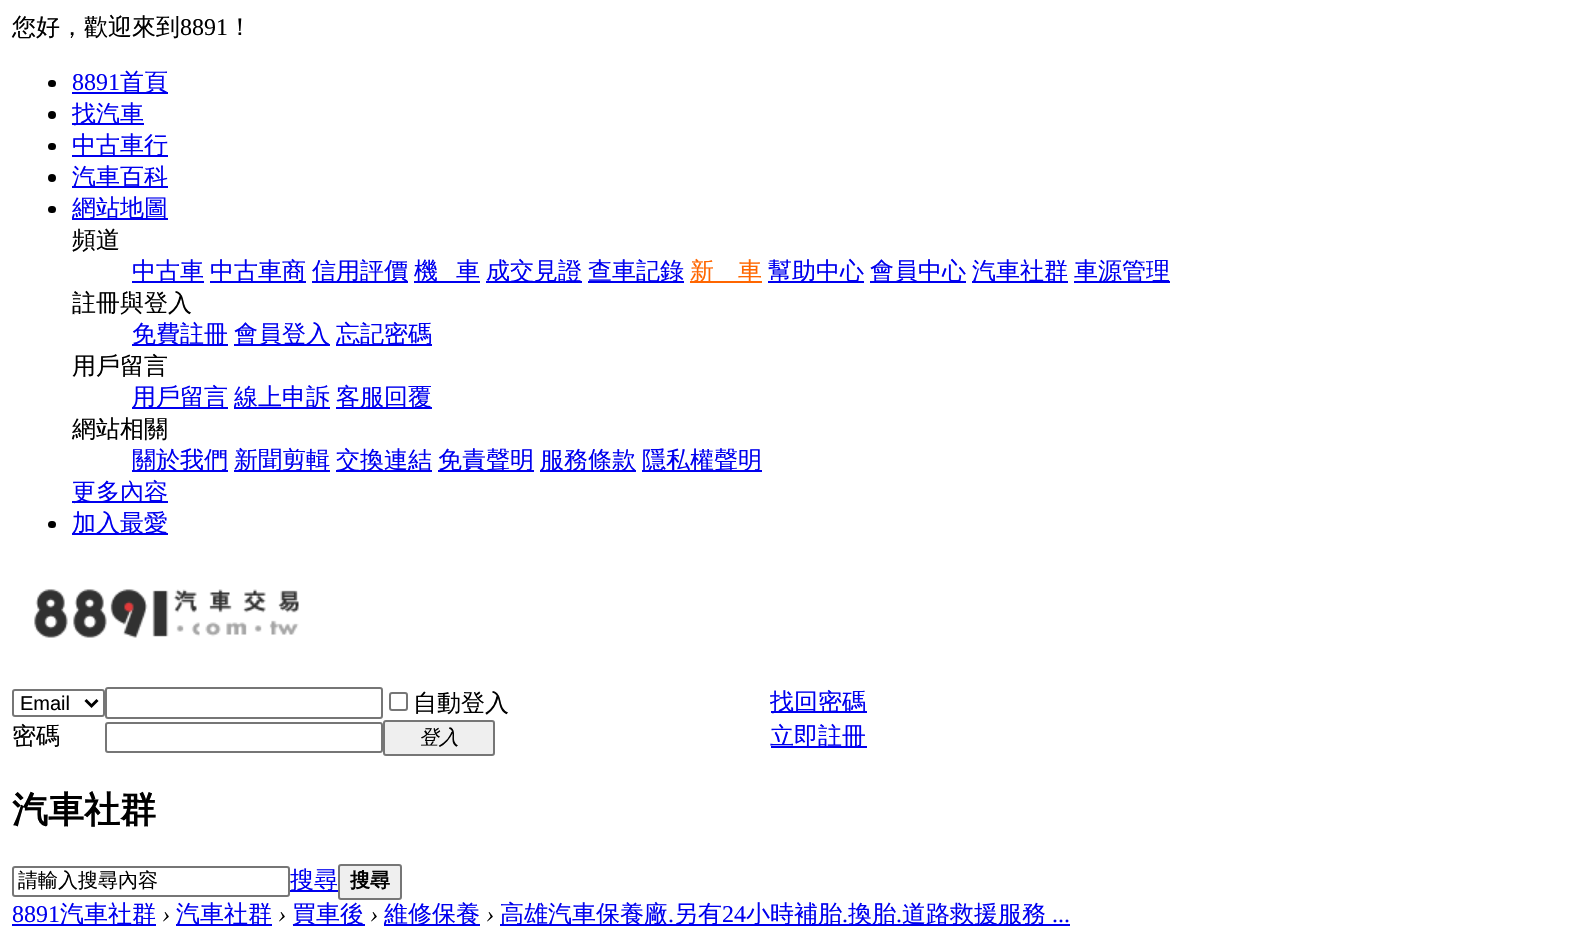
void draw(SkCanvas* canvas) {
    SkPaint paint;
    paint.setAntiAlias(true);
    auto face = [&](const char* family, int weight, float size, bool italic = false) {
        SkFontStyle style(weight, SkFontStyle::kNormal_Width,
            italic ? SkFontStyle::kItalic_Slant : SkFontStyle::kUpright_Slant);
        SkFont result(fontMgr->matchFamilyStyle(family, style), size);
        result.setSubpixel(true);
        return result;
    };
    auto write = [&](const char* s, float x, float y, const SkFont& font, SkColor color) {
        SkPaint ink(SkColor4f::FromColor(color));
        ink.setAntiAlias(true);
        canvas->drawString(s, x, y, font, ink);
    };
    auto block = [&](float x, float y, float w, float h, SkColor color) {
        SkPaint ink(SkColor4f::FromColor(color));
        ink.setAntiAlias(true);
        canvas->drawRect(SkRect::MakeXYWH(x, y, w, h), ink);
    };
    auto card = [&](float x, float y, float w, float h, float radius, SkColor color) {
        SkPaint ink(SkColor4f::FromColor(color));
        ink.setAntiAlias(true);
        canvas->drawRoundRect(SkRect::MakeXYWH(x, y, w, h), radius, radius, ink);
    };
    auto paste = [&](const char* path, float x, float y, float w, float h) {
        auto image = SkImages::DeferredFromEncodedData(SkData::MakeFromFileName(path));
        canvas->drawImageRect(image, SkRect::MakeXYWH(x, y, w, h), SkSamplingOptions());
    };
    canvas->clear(SK_ColorWHITE);
    auto kFont1 = face("WenQuanYi Zen Hei", 500, 24);
    write("您好，歡迎來到", 12, 35, kFont1, SK_ColorBLACK);
    auto kFont2 = face("Liberation Serif", 400, 24);
    write("8891", 180, 35, kFont2, SK_ColorBLACK);
    write("！", 228, 35, kFont1, SK_ColorBLACK);
    card(48, 80, 8, 7, 3.5f, SK_ColorBLACK);
    write("8891", 72, 90, kFont2, SkColorSetRGB(0, 0, 238));
    block(72, 92, 96, 2, SkColorSetRGB(0, 0, 238));
    write("首頁", 120, 90, kFont1, SkColorSetRGB(0, 0, 238));
    paint.setColor(SK_ColorBLACK);
    canvas->drawCircle(52, 115, 4, paint);
    block(72, 123, 72, 2, SkColorSetRGB(0, 0, 238));
    write("找汽車", 72, 122, kFont1, SkColorSetRGB(0, 0, 238));
    card(48, 143, 8, 7, 3.5f, SK_ColorBLACK);
    block(72, 155, 96, 2, SkColorSetRGB(0, 0, 238));
    write("中古車行", 72, 153, kFont1, SkColorSetRGB(0, 0, 238));
    canvas->drawCircle(52, 178, 4, paint);
    block(72, 186, 96, 2, SkColorSetRGB(0, 0, 238));
    write("汽車百科", 72, 185, kFont1, SkColorSetRGB(0, 0, 238));
    card(48, 206, 8, 7, 3.5f, SK_ColorBLACK);
    block(72, 218, 96, 2, SkColorSetRGB(0, 0, 238));
    write("網站地圖", 72, 216, kFont1, SkColorSetRGB(0, 0, 238));
    write("頻道", 72, 248, kFont1, SK_ColorBLACK);
    block(132, 281, 72, 2, SkColorSetRGB(0, 0, 238));
    write("中古車", 132, 279, kFont1, SkColorSetRGB(0, 0, 238));
    block(210, 281, 96, 2, SkColorSetRGB(0, 0, 238));
    write("中古車商", 210, 279, kFont1, SkColorSetRGB(0, 0, 238));
    block(312, 281, 96, 2, SkColorSetRGB(0, 0, 238));
    write("信用評價", 312, 279, kFont1, SkColorSetRGB(0, 0, 238));
    block(414, 281, 66, 2, SkColorSetRGB(0, 0, 238));
    write("機", 414, 279, kFont1, SkColorSetRGB(0, 0, 238));
    write("車", 456, 279, kFont1, SkColorSetRGB(0, 0, 238));
    block(486, 281, 96, 2, SkColorSetRGB(0, 0, 238));
    write("成交見證", 486, 279, kFont1, SkColorSetRGB(0, 0, 238));
    block(588, 281, 96, 2, SkColorSetRGB(0, 0, 238));
    write("查車記錄", 588, 279, kFont1, SkColorSetRGB(0, 0, 238));
    block(690, 281, 72, 2, SkColorSetRGB(255, 102, 0));
    write("新　車", 690, 279, kFont1, SkColorSetRGB(255, 102, 0));
    block(768, 281, 96, 2, SkColorSetRGB(0, 0, 238));
    write("幫助中心", 768, 279, kFont1, SkColorSetRGB(0, 0, 238));
    block(870, 281, 96, 2, SkColorSetRGB(0, 0, 238));
    write("會員中心", 870, 279, kFont1, SkColorSetRGB(0, 0, 238));
    block(972, 281, 96, 2, SkColorSetRGB(0, 0, 238));
    write("汽車社群", 972, 279, kFont1, SkColorSetRGB(0, 0, 238));
    block(1074, 281, 96, 2, SkColorSetRGB(0, 0, 238));
    write("車源管理", 1074, 279, kFont1, SkColorSetRGB(0, 0, 238));
    write("註冊與登入", 72, 311, kFont1, SK_ColorBLACK);
    block(132, 344, 96, 2, SkColorSetRGB(0, 0, 238));
    write("免費註冊", 132, 342, kFont1, SkColorSetRGB(0, 0, 238));
    block(234, 344, 96, 2, SkColorSetRGB(0, 0, 238));
    write("會員登入", 234, 342, kFont1, SkColorSetRGB(0, 0, 238));
    block(336, 344, 96, 2, SkColorSetRGB(0, 0, 238));
    write("忘記密碼", 336, 342, kFont1, SkColorSetRGB(0, 0, 238));
    write("用戶留言", 72, 374, kFont1, SK_ColorBLACK);
    block(132, 407, 96, 2, SkColorSetRGB(0, 0, 238));
    write("用戶留言", 132, 405, kFont1, SkColorSetRGB(0, 0, 238));
    block(234, 407, 96, 2, SkColorSetRGB(0, 0, 238));
    write("線上申訴", 234, 405, kFont1, SkColorSetRGB(0, 0, 238));
    block(336, 407, 96, 2, SkColorSetRGB(0, 0, 238));
    write("客服回覆", 336, 405, kFont1, SkColorSetRGB(0, 0, 238));
    write("網站相關", 72, 437, kFont1, SK_ColorBLACK);
    block(132, 470, 96, 2, SkColorSetRGB(0, 0, 238));
    write("關於我們", 132, 468, kFont1, SkColorSetRGB(0, 0, 238));
    block(234, 470, 96, 2, SkColorSetRGB(0, 0, 238));
    write("新聞剪輯", 234, 468, kFont1, SkColorSetRGB(0, 0, 238));
    block(336, 470, 96, 2, SkColorSetRGB(0, 0, 238));
    write("交換連結", 336, 468, kFont1, SkColorSetRGB(0, 0, 238));
    block(438, 470, 96, 2, SkColorSetRGB(0, 0, 238));
    write("免責聲明", 438, 468, kFont1, SkColorSetRGB(0, 0, 238));
    block(540, 470, 96, 2, SkColorSetRGB(0, 0, 238));
    write("服務條款", 540, 468, kFont1, SkColorSetRGB(0, 0, 238));
    block(642, 470, 120, 2, SkColorSetRGB(0, 0, 238));
    write("隱私權聲明", 642, 468, kFont1, SkColorSetRGB(0, 0, 238));
    block(72, 501, 96, 2, SkColorSetRGB(0, 0, 238));
    write("更多內容", 72, 500, kFont1, SkColorSetRGB(0, 0, 238));
    card(48, 521, 8, 7, 3.5f, SK_ColorBLACK);
    block(72, 533, 96, 2, SkColorSetRGB(0, 0, 238));
    write("加入最愛", 72, 531, kFont1, SkColorSetRGB(0, 0, 238));
    paste("pic1.png", 34, 589, 265, 49);
    paint.setStyle(SkPaint::kStroke_Style);
    paint.setStrokeWidth(2);
    paint.setColor(SkColorSetRGB(118, 118, 118));
    canvas->drawRoundRect(SkRect::MakeXYWH(13, 690, 91, 26), 2, 2, paint);
    paint.setStrokeWidth(3);
    paint.setColor(SK_ColorBLACK);
    canvas->drawPath(SkPathBuilder().moveTo(85.5f, 700).lineTo(91.5f, 706).lineTo(97.5f, 700).detach(), paint);
    auto kFont3 = face("Liberation Sans", 400, 20);
    write("Email", 20, 710, kFont3, SK_ColorBLACK);
    paint.setStrokeWidth(2);
    paint.setColor(SkColorSetRGB(118, 118, 118));
    canvas->drawRoundRect(SkRect::MakeXYWH(106, 688, 276, 30), 2, 2, paint);
    canvas->drawRoundRect(SkRect::MakeXYWH(390, 693, 17, 17), 2, 2, paint);
    write("自動登入", 413, 711, kFont1, SK_ColorBLACK);
    block(771, 711, 96, 2, SkColorSetRGB(0, 0, 238));
    write("找回密碼", 770, 710, kFont1, SkColorSetRGB(0, 0, 238));
    write("密碼", 12, 744, kFont1, SK_ColorBLACK);
    canvas->drawRoundRect(SkRect::MakeXYWH(106, 723, 276, 29), 2, 2, paint);
    paint.setStyle(SkPaint::kFill_Style);
    paint.setColor(SkColorSetRGB(239, 239, 239));
    canvas->drawRoundRect(SkRect::MakeXYWH(384, 721, 110, 34), 2, 2, paint);
    paint.setStyle(SkPaint::kStroke_Style);
    paint.setColor(SkColorSetRGB(118, 118, 118));
    canvas->drawRoundRect(SkRect::MakeXYWH(384, 721, 110, 34), 2, 2, paint);
    auto kFont4 = face("WenQuanYi Zen Hei", 500, 20, true);
    write("登入", 419, 744, kFont4, SK_ColorBLACK);
    block(771, 746, 96, 2, SkColorSetRGB(0, 0, 238));
    write("立即註冊", 770, 744, kFont1, SkColorSetRGB(0, 0, 238));
    auto kFont5 = face("WenQuanYi Zen Hei", 700, 36);
    write("汽車社群", 12, 822, kFont5, SK_ColorBLACK);
    canvas->drawRoundRect(SkRect::MakeXYWH(13, 867, 276, 29), 2, 2, paint);
    auto kFont6 = face("WenQuanYi Zen Hei", 500, 20);
    write("請輸入搜尋內容", 18, 887, kFont6, SK_ColorBLACK);
    block(290, 890, 48, 2, SkColorSetRGB(0, 0, 238));
    write("搜尋", 290, 888, kFont1, SkColorSetRGB(0, 0, 238));
    paint.setStyle(SkPaint::kFill_Style);
    paint.setColor(SkColorSetRGB(239, 239, 239));
    canvas->drawRoundRect(SkRect::MakeXYWH(339, 865, 62, 34), 2, 2, paint);
    paint.setStyle(SkPaint::kStroke_Style);
    paint.setColor(SkColorSetRGB(118, 118, 118));
    canvas->drawRoundRect(SkRect::MakeXYWH(339, 865, 62, 34), 2, 2, paint);
    auto kFont7 = face("WenQuanYi Zen Hei", 700, 20);
    write("搜尋", 350, 887, kFont7, SK_ColorBLACK);
    write("8891", 12, 922, kFont2, SkColorSetRGB(0, 0, 238));
    block(12, 924, 144, 2, SkColorSetRGB(0, 0, 238));
    write("汽車社群", 60, 922, kFont1, SkColorSetRGB(0, 0, 238));
    auto kFont8 = face("Liberation Serif", 400, 24, true);
    write("›", 162, 922, kFont8, SK_ColorBLACK);
    block(176, 924, 96, 2, SkColorSetRGB(0, 0, 238));
    write("汽車社群", 176, 922, kFont1, SkColorSetRGB(0, 0, 238));
    write("›", 278, 922, kFont8, SK_ColorBLACK);
    block(293, 924, 72, 2, SkColorSetRGB(0, 0, 238));
    write("買車後", 292, 922, kFont1, SkColorSetRGB(0, 0, 238));
    write("›", 370, 922, kFont8, SK_ColorBLACK);
    block(384, 924, 96, 2, SkColorSetRGB(0, 0, 238));
    write("維修保養", 384, 922, kFont1, SkColorSetRGB(0, 0, 238));
    write("›", 486, 922, kFont8, SK_ColorBLACK);
    block(500, 924, 570, 2, SkColorSetRGB(0, 0, 238));
    write("高雄汽車保養廠", 500, 922, kFont1, SkColorSetRGB(0, 0, 238));
    write(".", 668, 922, kFont2, SkColorSetRGB(0, 0, 238));
    write("另有", 674, 922, kFont1, SkColorSetRGB(0, 0, 238));
    write("24", 722, 922, kFont2, SkColorSetRGB(0, 0, 238));
    write("小時補胎", 746, 922, kFont1, SkColorSetRGB(0, 0, 238));
    write(".", 842, 922, kFont2, SkColorSetRGB(0, 0, 238));
    write("換胎", 848, 922, kFont1, SkColorSetRGB(0, 0, 238));
    write(".", 896, 922, kFont2, SkColorSetRGB(0, 0, 238));
    write("道路救援服務", 902, 922, kFont1, SkColorSetRGB(0, 0, 238));
    write("...", 1052, 922, kFont2, SkColorSetRGB(0, 0, 238));
}
